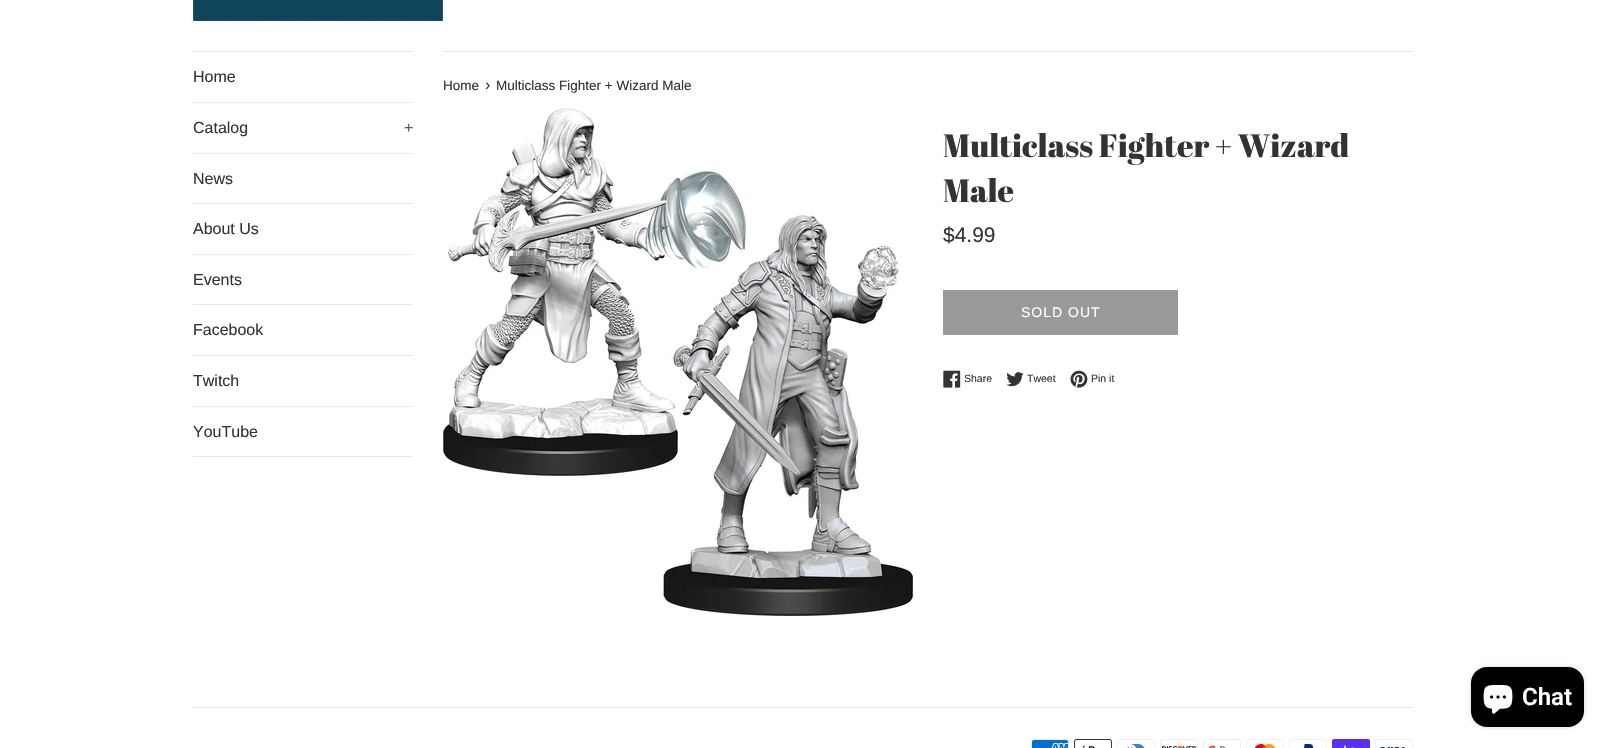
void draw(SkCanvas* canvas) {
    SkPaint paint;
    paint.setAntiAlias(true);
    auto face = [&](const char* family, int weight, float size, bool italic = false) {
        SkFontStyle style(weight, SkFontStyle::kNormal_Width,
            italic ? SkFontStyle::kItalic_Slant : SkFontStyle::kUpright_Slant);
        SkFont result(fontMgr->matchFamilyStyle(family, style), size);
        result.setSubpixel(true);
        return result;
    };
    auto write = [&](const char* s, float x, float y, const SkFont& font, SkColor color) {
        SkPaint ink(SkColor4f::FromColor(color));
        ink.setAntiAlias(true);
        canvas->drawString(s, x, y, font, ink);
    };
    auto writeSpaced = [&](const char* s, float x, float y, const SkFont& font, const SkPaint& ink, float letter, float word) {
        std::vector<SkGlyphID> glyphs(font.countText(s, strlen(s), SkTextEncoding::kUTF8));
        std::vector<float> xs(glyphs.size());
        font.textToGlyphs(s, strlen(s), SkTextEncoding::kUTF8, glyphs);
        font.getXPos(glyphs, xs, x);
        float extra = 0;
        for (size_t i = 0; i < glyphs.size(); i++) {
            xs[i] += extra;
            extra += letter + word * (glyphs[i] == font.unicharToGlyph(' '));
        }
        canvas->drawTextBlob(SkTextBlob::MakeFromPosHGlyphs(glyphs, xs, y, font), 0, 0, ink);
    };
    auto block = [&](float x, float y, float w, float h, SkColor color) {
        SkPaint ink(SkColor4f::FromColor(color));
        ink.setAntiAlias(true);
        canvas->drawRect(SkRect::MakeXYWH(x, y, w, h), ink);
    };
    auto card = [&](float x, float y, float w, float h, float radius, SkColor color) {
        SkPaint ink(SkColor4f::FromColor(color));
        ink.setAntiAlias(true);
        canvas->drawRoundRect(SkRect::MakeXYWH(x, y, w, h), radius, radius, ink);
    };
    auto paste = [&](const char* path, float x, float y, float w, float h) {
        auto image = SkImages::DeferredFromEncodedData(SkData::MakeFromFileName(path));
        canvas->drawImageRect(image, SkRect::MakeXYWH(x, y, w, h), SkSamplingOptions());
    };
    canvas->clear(SK_ColorWHITE);
    paste("pic1.png", 193, 0, 250, 21);
    block(193, 51, 220, 1, SkColorSetRGB(232, 232, 232));
    block(193, 102, 220, 1, SkColorSetRGB(232, 232, 232));
    auto kFont1 = face("Liberation Sans", 400, 16);
    write("Home", 193, 82, kFont1, SkColorSetRGB(51, 51, 51));
    block(193, 153, 220, 1, SkColorSetRGB(232, 232, 232));
    write("Catalog", 193, 133, kFont1, SkColorSetRGB(51, 51, 51));
    write("+", 404, 133, kFont1, SkColorSetRGB(92, 92, 92));
    block(193, 203, 220, 1, SkColorSetRGB(232, 232, 232));
    write("News", 193, 184, kFont1, SkColorSetRGB(51, 51, 51));
    block(193, 254, 220, 1, SkColorSetRGB(232, 232, 232));
    write("About Us", 193, 234, kFont1, SkColorSetRGB(51, 51, 51));
    block(193, 304, 220, 1, SkColorSetRGB(232, 232, 232));
    write("Events", 193, 285, kFont1, SkColorSetRGB(51, 51, 51));
    block(193, 355, 220, 1, SkColorSetRGB(232, 232, 232));
    write("Facebook", 193, 335, kFont1, SkColorSetRGB(51, 51, 51));
    block(193, 406, 220, 1, SkColorSetRGB(232, 232, 232));
    write("Twitch", 193, 386, kFont1, SkColorSetRGB(51, 51, 51));
    block(193, 456, 220, 1, SkColorSetRGB(232, 232, 232));
    write("YouTube", 193, 437, kFont1, SkColorSetRGB(51, 51, 51));
    block(443, 51, 970, 1, SkColorSetRGB(232, 232, 232));
    auto kFont2 = face("Liberation Sans", 400, 13.5f);
    write("Home", 443, 90, kFont2, SkColorSetRGB(51, 51, 51));
    write("›", 485, 90, kFont1, SkColorSetRGB(51, 51, 51));
    write("Multiclass Fighter + Wizard Male", 496, 90, kFont2, SkColorSetRGB(51, 51, 51));
    paste("pic2.png", 443, 108, 470, 508);
    auto kFont3 = face("Abril Fatface", 400, 32);
    write("Multiclass Fighter + Wizard", 943, 157, kFont3, SkColorSetRGB(51, 51, 51));
    write("Male", 943, 202, kFont3, SkColorSetRGB(51, 51, 51));
    auto kFont4 = face("Liberation Sans", 400, 21);
    write("$4.99", 943, 242, kFont4, SkColorSetRGB(51, 51, 51));
    block(943, 290, 235, 45, SkColorSetRGB(153, 153, 153));
    auto kFont5 = face("Liberation Sans", 400, 14);
    paint.setColor(SK_ColorWHITE);
    writeSpaced("SOLD OUT", 1021, 317, kFont5, paint, 1, 0);
    paste("pic3.png", 943, 370, 18, 18);
    auto kFont6 = face("Liberation Sans", 400, 10.5f);
    write("Share", 964, 382, kFont6, SkColorSetRGB(51, 51, 51));
    paste("pic4.png", 1006, 372, 18, 15);
    write("Tweet", 1027, 382, kFont6, SkColorSetRGB(51, 51, 51));
    paste("pic5.png", 1070, 370, 18, 18);
    write("Pin it", 1091, 382, kFont6, SkColorSetRGB(51, 51, 51));
    block(193, 707, 1220, 1, SkColorSetRGB(232, 232, 232));
    paste("pic6.png", 1031, 739, 38, 9);
    paste("pic7.png", 1074, 739, 38, 9);
    paste("pic8.png", 1117, 739, 38, 9);
    paste("pic9.png", 1160, 739, 38, 9);
    paste("pic10.png", 1203, 739, 38, 9);
    paste("pic11.png", 1246, 739, 38, 9);
    paste("pic12.png", 1289, 739, 38, 9);
    paste("pic13.png", 1332, 739, 38, 9);
    paste("pic14.png", 1375, 739, 38, 9);
    paint.setColor(SkColorSetARGB(38, 0, 0, 0));
    paint.setMaskFilter(SkMaskFilter::MakeBlur(kNormal_SkBlurStyle, 2.5f));
    canvas->drawRoundRect(SkRect::MakeXYWH(1471, 667, 113, 60), 16, 16, paint);
    paint.setMaskFilter(nullptr);
    card(1471, 667, 113, 60, 16, SK_ColorBLACK);
    paste("pic15.png", 1483, 685, 30, 29);
    auto kFont7 = face("Roboto", 600, 24);
    write("Chat", 1522, 705, kFont7, SK_ColorWHITE);
}
